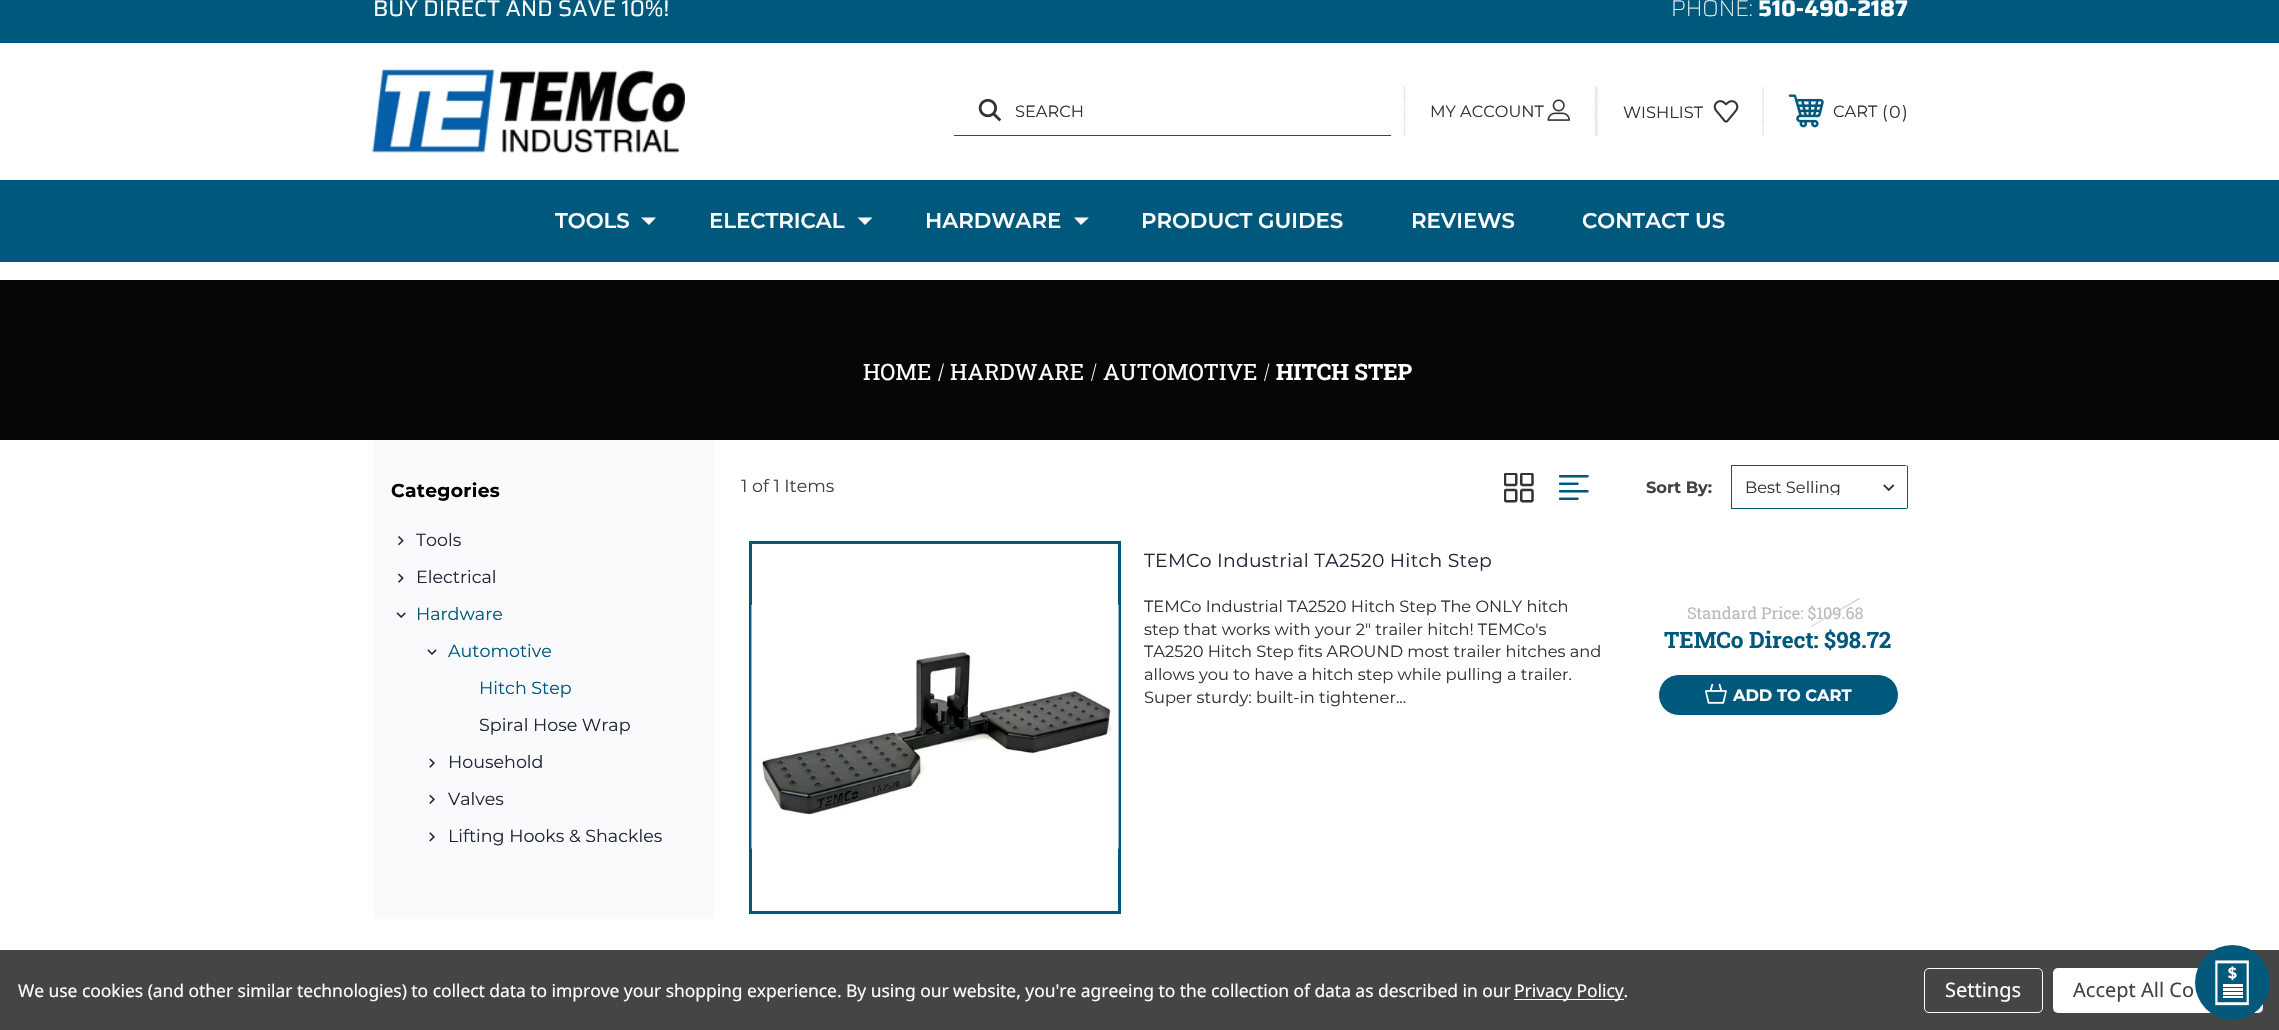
void draw(SkCanvas* canvas) {
    SkPaint paint;
    paint.setAntiAlias(true);
    auto face = [&](const char* family, int weight, float size, bool italic = false) {
        SkFontStyle style(weight, SkFontStyle::kNormal_Width,
            italic ? SkFontStyle::kItalic_Slant : SkFontStyle::kUpright_Slant);
        SkFont result(fontMgr->matchFamilyStyle(family, style), size);
        result.setSubpixel(true);
        return result;
    };
    auto write = [&](const char* s, float x, float y, const SkFont& font, SkColor color) {
        SkPaint ink(SkColor4f::FromColor(color));
        ink.setAntiAlias(true);
        canvas->drawString(s, x, y, font, ink);
    };
    auto writeSpaced = [&](const char* s, float x, float y, const SkFont& font, const SkPaint& ink, float letter, float word) {
        std::vector<SkGlyphID> glyphs(font.countText(s, strlen(s), SkTextEncoding::kUTF8));
        std::vector<float> xs(glyphs.size());
        font.textToGlyphs(s, strlen(s), SkTextEncoding::kUTF8, glyphs);
        font.getXPos(glyphs, xs, x);
        float extra = 0;
        for (size_t i = 0; i < glyphs.size(); i++) {
            xs[i] += extra;
            extra += letter + word * (glyphs[i] == font.unicharToGlyph(' '));
        }
        canvas->drawTextBlob(SkTextBlob::MakeFromPosHGlyphs(glyphs, xs, y, font), 0, 0, ink);
    };
    auto block = [&](float x, float y, float w, float h, SkColor color) {
        SkPaint ink(SkColor4f::FromColor(color));
        ink.setAntiAlias(true);
        canvas->drawRect(SkRect::MakeXYWH(x, y, w, h), ink);
    };
    auto card = [&](float x, float y, float w, float h, float radius, SkColor color) {
        SkPaint ink(SkColor4f::FromColor(color));
        ink.setAntiAlias(true);
        canvas->drawRoundRect(SkRect::MakeXYWH(x, y, w, h), radius, radius, ink);
    };
    auto paste = [&](const char* path, float x, float y, float w, float h) {
        auto image = SkImages::DeferredFromEncodedData(SkData::MakeFromFileName(path));
        canvas->drawImageRect(image, SkRect::MakeXYWH(x, y, w, h), SkSamplingOptions());
    };
    canvas->clear(SK_ColorWHITE);
    block(0, 0, 2279, 43, SkColorSetRGB(0, 88, 124));
    auto kFont1 = face("Saira", 400, 22.5f);
    write("BUY DIRECT AND SAVE 10%!", 373, 16, kFont1, SK_ColorWHITE);
    auto kFont2 = face("Saira", 100, 22.5f);
    write("PHONE:", 1671, 16, kFont2, SK_ColorWHITE);
    auto kFont3 = face("Saira", 700, 22.5f);
    write("510-490-2187", 1758, 16, kFont3, SK_ColorWHITE);
    block(0, 180, 2279, 82, SkColorSetRGB(0, 88, 124));
    paste("pic1.png", 372, 69, 313, 84);
    block(954, 135, 437, 1, SkColorSetRGB(0, 88, 124));
    paste("pic2.png", 978, 98, 24, 24);
    auto kFont4 = face("Montserrat", 400, 16.25f);
    write("SEARCH", 1015, 117, kFont4, SkColorSetRGB(51, 51, 51));
    paint.setStyle(SkPaint::kStroke_Style);
    paint.setStrokeWidth(1.2f);
    paint.setColor(SkColorSetRGB(204, 204, 204));
    paint.setPathEffect(SkDashPathEffect::Make({{1.25f, 1.25f}}, 0));
    canvas->drawPath(SkPathBuilder().moveTo(1595.5f, 86).lineTo(1595.5f, 136).detach(), paint);
    paint.setPathEffect(nullptr);
    paint.setPathEffect(SkDashPathEffect::Make({{1.25f, 1.25f}}, 0));
    canvas->drawPath(SkPathBuilder().moveTo(1404.5f, 86).lineTo(1404.5f, 136).detach(), paint);
    paint.setPathEffect(nullptr);
    write("MY ACCOUNT", 1430, 117, kFont4, SkColorSetRGB(51, 51, 51));
    paste("pic3.png", 1547, 99, 23, 22);
    paint.setPathEffect(SkDashPathEffect::Make({{1.25f, 1.25f}}, 0));
    canvas->drawPath(SkPathBuilder().moveTo(1763, 87.5f).lineTo(1763, 136).detach(), paint);
    paint.setPathEffect(nullptr);
    paint.setPathEffect(SkDashPathEffect::Make({{1.25f, 1.25f}}, 0));
    canvas->drawPath(SkPathBuilder().moveTo(1597, 87.5f).lineTo(1597, 136).detach(), paint);
    paint.setPathEffect(nullptr);
    write("WISHLIST", 1623, 118, kFont4, SkColorSetRGB(51, 51, 51));
    paste("pic4.png", 1713, 100, 26, 23);
    paste("pic5.png", 1788, 94, 36, 34);
    write("CART", 1833, 117, kFont4, SkColorSetRGB(51, 51, 51));
    auto kFont5 = face("Montserrat", 400, 17.5f);
    write("(", 1882, 118, kFont5, SkColorSetRGB(51, 51, 51));
    write("0", 1889, 118, kFont5, SkColorSetRGB(51, 51, 51));
    write(")", 1902, 118, kFont5, SkColorSetRGB(51, 51, 51));
    auto kFont6 = face("Montserrat", 600, 21.25f);
    write("TOOLS", 555, 228, kFont6, SK_ColorWHITE);
    paint.setStyle(SkPaint::kFill_Style);
    paint.setColor(SkColorSetRGB(250, 250, 253));
    canvas->drawPath(SkPathBuilder().moveTo(641, 217.5f).lineTo(649, 225).lineTo(656, 217.5f).close().detach(), paint);
    write("ELECTRICAL", 709, 228, kFont6, SK_ColorWHITE);
    canvas->drawPath(SkPathBuilder().moveTo(857.5f, 217.5f).lineTo(865, 225).lineTo(872.5f, 217.5f).close().detach(), paint);
    write("HARDWARE", 925, 228, kFont6, SK_ColorWHITE);
    canvas->drawPath(SkPathBuilder().moveTo(1074, 217.5f).lineTo(1081, 225).lineTo(1089, 217.5f).close().detach(), paint);
    write("PRODUCT GUIDES", 1141, 228, kFont6, SK_ColorWHITE);
    write("REVIEWS", 1411, 228, kFont6, SK_ColorWHITE);
    write("CONTACT US", 1582, 228, kFont6, SK_ColorWHITE);
    block(0, 280, 2279, 160, SkColorSetRGB(6, 6, 6));
    auto kFont7 = face("Roboto Slab", 400, 22.5f);
    write("HOME", 863, 380, kFont7, SK_ColorWHITE);
    paint.setColor(SK_ColorWHITE);
    canvas->drawPath(SkPathBuilder().moveTo(943, 363.5f).lineTo(944, 363.5f).lineTo(939.5f, 381).lineTo(938, 381).close().detach(), paint);
    write("HARDWARE", 950, 380, kFont7, SK_ColorWHITE);
    canvas->drawPath(SkPathBuilder().moveTo(1095.5f, 363.5f).lineTo(1096.5f, 363.5f).lineTo(1092, 381).lineTo(1091, 381).close().detach(), paint);
    write("AUTOMOTIVE", 1103, 380, kFont7, SK_ColorWHITE);
    canvas->drawPath(SkPathBuilder().moveTo(1268.5f, 363.5f).lineTo(1269.5f, 363.5f).lineTo(1265, 381).lineTo(1264, 381).close().detach(), paint);
    auto kFont8 = face("Roboto Slab", 700, 22.5f);
    write("HITCH STEP", 1276, 380, kFont8, SK_ColorWHITE);
    block(373, 440, 342, 479, SkColorSetRGB(250, 250, 253));
    auto kFont9 = face("Montserrat", 700, 18.75f);
    paint.setColor(SK_ColorBLACK);
    writeSpaced("Categories", 391, 497, kFont9, paint, 0.3f, 0);
    paste("pic6.png", 398, 536, 6, 10);
    write("Tools", 416, 546, kFont5, SkColorSetRGB(32, 39, 56));
    paste("pic7.png", 398, 573, 6, 10);
    write("Electrical", 416, 583, kFont5, SkColorSetRGB(32, 39, 56));
    paste("pic8.png", 396, 612, 10, 6);
    write("Hardware", 416, 620, kFont5, SkColorSetRGB(0, 88, 124));
    paste("pic9.png", 427, 649, 10, 6);
    write("Automotive", 448, 657, kFont5, SkColorSetRGB(0, 88, 124));
    write("Hitch Step", 479, 694, kFont5, SkColorSetRGB(0, 88, 124));
    write("Spiral Hose Wrap", 479, 731, kFont5, SkColorSetRGB(32, 39, 56));
    paste("pic10.png", 429, 758, 6, 10);
    write("Household", 448, 768, kFont5, SkColorSetRGB(32, 39, 56));
    paste("pic11.png", 429, 794, 6, 10);
    write("Valves", 448, 805, kFont5, SkColorSetRGB(32, 39, 56));
    paste("pic12.png", 429, 832, 6, 10);
    write("Lifting Hooks & Shackles", 448, 842, kFont5, SkColorSetRGB(32, 39, 56));
    write("1 of 1 Items", 741, 492, kFont5, SkColorSetRGB(66, 66, 66));
    paste("pic13.png", 1504, 473, 30, 30);
    paste("pic14.png", 1559, 475, 30, 25);
    auto kFont10 = face("Montserrat", 700, 16.25f);
    write("Sort By:", 1646, 493, kFont10, SkColorSetRGB(66, 66, 66));
    paste("pic15.png", 1883, 484, 12, 8);
    paint.setColor(SkColorSetRGB(0, 88, 124));
    canvas->drawPath(SkPathBuilder(SkPathFillType::kEvenOdd).moveTo(1731, 465).lineTo(1731, 509).lineTo(1905, 509).cubicTo(1906, 509, 1907, 509, 1908, 508).lineTo(1908, 466).lineTo(1905, 465).close().moveTo(1732, 466).lineTo(1732, 508).lineTo(1907, 508).lineTo(1907, 466).close().detach(), paint);
    canvas->save();
    canvas->clipRect(SkRect::MakeXYWH(1745, 479, 149, 16));
    write("Best Selling", 1745, 493, kFont4, SkColorSetRGB(51, 51, 51));
    canvas->restore();
    paint.setStyle(SkPaint::kStroke_Style);
    paint.setStrokeWidth(3);
    canvas->drawRect(SkRect::MakeXYWH(750.5f, 542.5f, 369, 370), paint);
    paste("pic16.png", 751, 604, 368, 245);
    auto kFont11 = face("Montserrat", 400, 18.75f);
    paint.setStyle(SkPaint::kFill_Style);
    paint.setColor(SkColorSetRGB(32, 39, 56));
    writeSpaced("TEMCo Industrial TA2520 Hitch Step", 1144, 567, kFont11, paint, 0.3f, 0);
    write("TEMCo Industrial TA2520 Hitch Step The ONLY hitch", 1144, 612, kFont4, SkColorSetRGB(51, 51, 51));
    write("step that works with your 2\" trailer hitch! TEMCo's", 1144, 635, kFont4, SkColorSetRGB(51, 51, 51));
    write("TA2520 Hitch Step fits AROUND most trailer hitches and", 1144, 657, kFont4, SkColorSetRGB(51, 51, 51));
    write("allows you to have a hitch step while pulling a trailer.", 1144, 680, kFont4, SkColorSetRGB(51, 51, 51));
    write("Super sturdy: built-in tightener...", 1144, 703, kFont4, SkColorSetRGB(51, 51, 51));
    auto kFont12 = face("Roboto Slab", 400, 16.25f);
    write("Standard Price: $109.68", 1687, 619, kFont12, SkColorSetRGB(186, 186, 186));
    paint.setColor(SkColorSetARGB(179, 186, 186, 186));
    canvas->drawPath(SkPathBuilder().moveTo(1811, 626).lineTo(1859, 598).lineTo(1860, 599).lineTo(1811, 627).close().detach(), paint);
    write("TEMCo Direct: $98.72", 1664, 648, kFont8, SkColorSetRGB(0, 88, 124));
    paint.setColor(SkColorSetRGB(0, 88, 124));
    canvas->drawRoundRect(SkRect::MakeXYWH(1658.5f, 674.5f, 240, 41), 20.5f, 20.5f, paint);
    paint.setStyle(SkPaint::kStroke_Style);
    paint.setStrokeWidth(1);
    paint.setColor(SK_ColorWHITE);
    canvas->drawRoundRect(SkRect::MakeXYWH(1658.5f, 674.5f, 240, 41), 20.5f, 20.5f, paint);
    paste("pic17.png", 1705, 683, 22, 21);
    write("ADD TO CART", 1733, 701, kFont10, SK_ColorWHITE);
    block(0, 950, 2279, 80, SkColorSetRGB(69, 69, 69));
    auto kFont13 = face("Noto Sans", 400, 17.5f);
    paint.setStyle(SkPaint::kFill_Style);
    writeSpaced("We use cookies (and other similar technologies) to collect data to improve your shopping experience. By using our website, you're agreeing to the collection of data as described in our", 18, 997, kFont13, paint, -0.06f, 0);
    block(1514, 999, 110, 1, SK_ColorWHITE);
    writeSpaced("Privacy Policy.", 1514, 997, kFont13, paint, -0.06f, 0);
    paint.setStyle(SkPaint::kStroke_Style);
    canvas->drawRoundRect(SkRect::MakeXYWH(1924.5f, 968.5f, 118, 44), 4.5f, 4.5f, paint);
    auto kFont14 = face("Noto Sans", 400, 20);
    write("Settings", 1945, 997, kFont14, SK_ColorWHITE);
    card(2053, 968, 210, 45, 5, SK_ColorWHITE);
    write("Accept All Co", 2073, 997, kFont14, SkColorSetRGB(66, 66, 66));
    paint.setStyle(SkPaint::kFill_Style);
    paint.setColor(SkColorSetRGB(2, 89, 124));
    canvas->drawCircle(2232.5f, 982.5f, 37.5f, paint);
    paste("pic18.png", 2215, 960, 34, 46);
}
